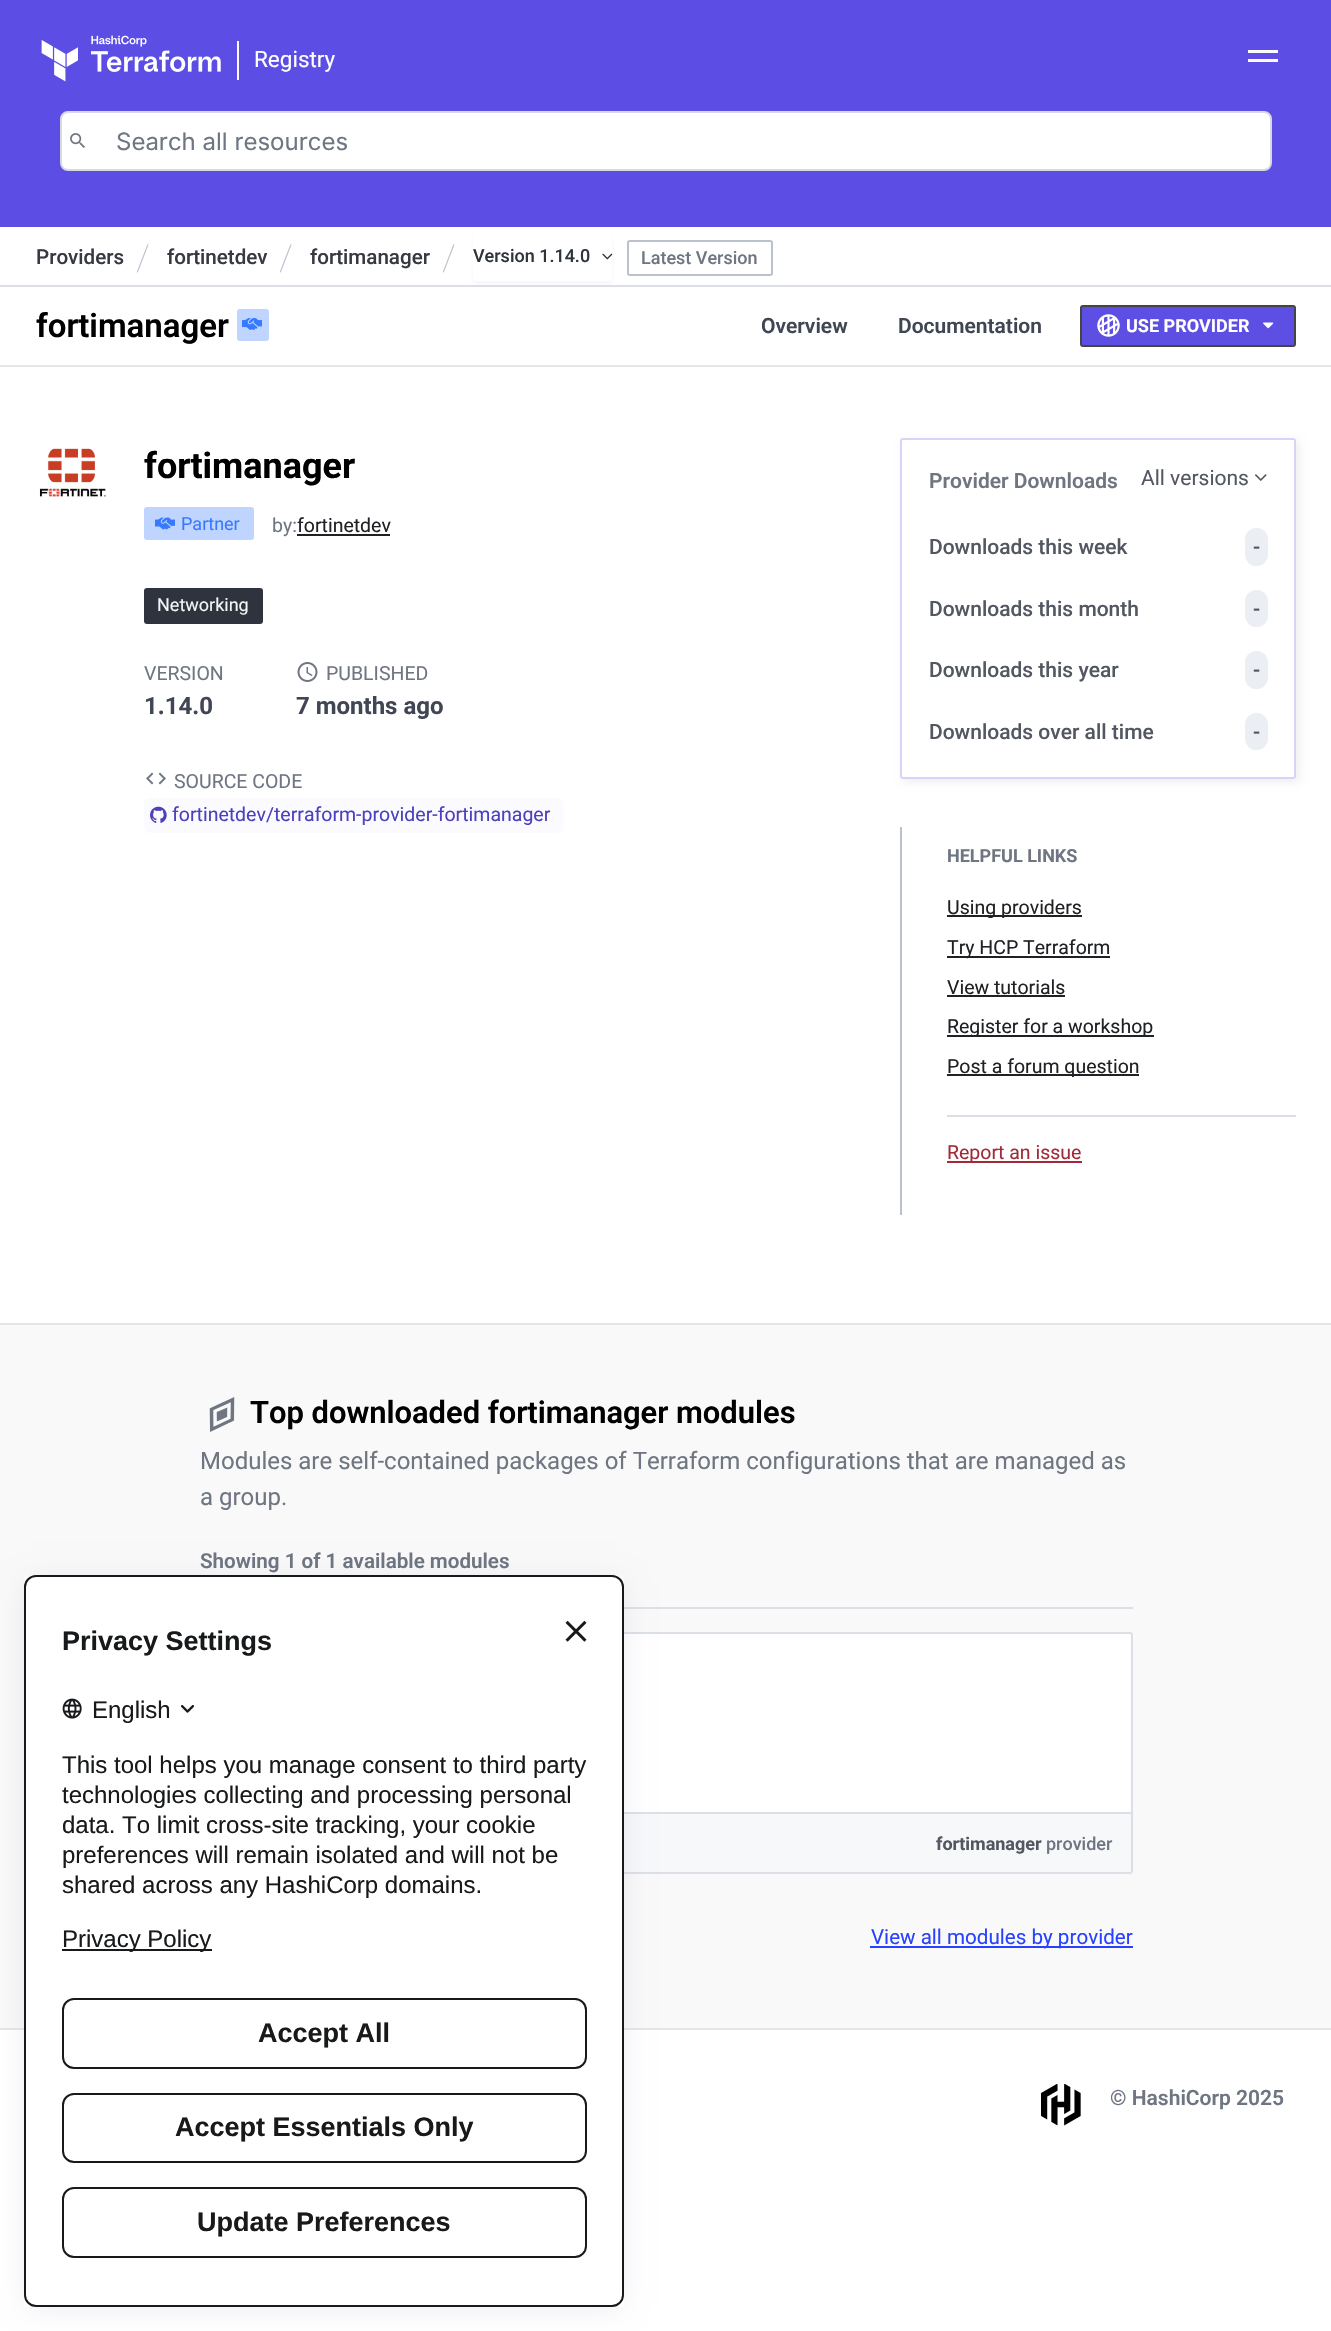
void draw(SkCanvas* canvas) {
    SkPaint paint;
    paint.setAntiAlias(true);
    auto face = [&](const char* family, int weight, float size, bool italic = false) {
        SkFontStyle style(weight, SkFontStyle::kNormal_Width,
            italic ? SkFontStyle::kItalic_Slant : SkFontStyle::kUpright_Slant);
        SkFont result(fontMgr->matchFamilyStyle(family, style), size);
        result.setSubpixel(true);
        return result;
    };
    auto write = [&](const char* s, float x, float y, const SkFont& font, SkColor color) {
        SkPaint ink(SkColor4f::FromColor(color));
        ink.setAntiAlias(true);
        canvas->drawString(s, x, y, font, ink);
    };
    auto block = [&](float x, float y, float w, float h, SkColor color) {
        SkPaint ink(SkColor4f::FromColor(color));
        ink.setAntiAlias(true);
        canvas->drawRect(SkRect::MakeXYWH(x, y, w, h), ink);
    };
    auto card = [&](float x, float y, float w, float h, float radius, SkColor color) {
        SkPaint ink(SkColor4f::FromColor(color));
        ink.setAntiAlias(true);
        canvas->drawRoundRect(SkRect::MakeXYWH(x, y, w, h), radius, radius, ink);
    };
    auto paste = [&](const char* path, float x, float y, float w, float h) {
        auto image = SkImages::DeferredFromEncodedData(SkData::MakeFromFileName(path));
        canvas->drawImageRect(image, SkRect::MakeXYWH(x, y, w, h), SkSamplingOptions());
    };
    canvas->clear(SK_ColorWHITE);
    block(0, 0, 1331, 227, SkColorSetRGB(92, 78, 229));
    paste("pic1.png", 41, 35, 180, 47);
    block(237, 41, 2, 39, SkColorSetRGB(251, 250, 254));
    auto kFont1 = face("Roboto", 400, 22.5f);
    write("Registry", 254, 67, kFont1, SK_ColorWHITE);
    block(1248, 50, 30, 3, SkColorSetRGB(251, 250, 254));
    block(1248, 59, 30, 3, SkColorSetRGB(251, 250, 254));
    paint.setColor(SK_ColorWHITE);
    canvas->drawRoundRect(SkRect::MakeXYWH(61, 112, 1210, 58), 7, 7, paint);
    paint.setStyle(SkPaint::kStroke_Style);
    paint.setStrokeWidth(2);
    paint.setColor(SkColorSetRGB(214, 217, 224));
    canvas->drawRoundRect(SkRect::MakeXYWH(61, 112, 1210, 58), 7, 7, paint);
    paste("pic2.png", 70, 133, 15, 15);
    auto kFont2 = face("Inter", 400, 24);
    write("Search all resources", 116, 150, kFont2, SkColorSetRGB(111, 118, 130));
    block(0, 285, 1331, 2, SkColorSetRGB(220, 224, 230));
    auto kFont3 = face("Roboto", 500, 20.6f);
    write("Providers", 36, 264, kFont3, SkColorSetRGB(55, 58, 66));
    auto kFont4 = face("Roboto", 100, 36);
    write("/", 136, 270, kFont4, SkColorSetRGB(186, 193, 204));
    write("fortinetdev", 167, 264, kFont3, SkColorSetRGB(55, 58, 66));
    write("/", 279, 270, kFont4, SkColorSetRGB(186, 193, 204));
    write("fortimanager", 310, 264, kFont3, SkColorSetRGB(55, 58, 66));
    write("/", 442, 270, kFont4, SkColorSetRGB(186, 193, 204));
    paint.setStyle(SkPaint::kFill_Style);
    paint.setColor(SkColorSetARGB(13, 51, 51, 51));
    paint.setMaskFilter(SkMaskFilter::MakeBlur(kNormal_SkBlurStyle, 2));
    canvas->drawRoundRect(SkRect::MakeXYWH(473, 236, 139, 48), 3, 3, paint);
    paint.setMaskFilter(nullptr);
    card(473, 233, 139, 48, 3, SK_ColorWHITE);
    auto kFont5 = face("Roboto", 500, 18);
    write("Version 1.14.0", 473, 262, kFont5, SkColorSetRGB(46, 51, 61));
    paste("pic3.png", 602, 253, 11, 7);
    paint.setStyle(SkPaint::kStroke_Style);
    paint.setColor(SkColorSetRGB(186, 193, 204));
    canvas->drawRoundRect(SkRect::MakeXYWH(628, 241, 144, 34), 2, 2, paint);
    write("Latest Version", 641, 264, kFont5, SkColorSetRGB(111, 118, 130));
    block(0, 365, 1331, 2, SkColorSetRGB(230, 230, 230));
    auto kFont6 = face("Roboto", 600, 33);
    write("fortimanager", 36, 337, kFont6, SK_ColorBLACK);
    card(237, 309, 32, 32, 3, SkColorSetRGB(191, 212, 255));
    paste("pic4.png", 242, 318, 20, 12);
    auto kFont7 = face("Roboto", 600, 21);
    write("Overview", 761, 333, kFont7, SkColorSetRGB(64, 70, 84));
    write("Documentation", 898, 333, kFont7, SkColorSetRGB(64, 70, 84));
    paint.setStyle(SkPaint::kFill_Style);
    paint.setColor(SkColorSetRGB(93, 78, 228));
    canvas->drawRoundRect(SkRect::MakeXYWH(1081, 306, 214, 40), 2, 2, paint);
    paint.setStyle(SkPaint::kStroke_Style);
    paint.setColor(SkColorSetRGB(68, 68, 68));
    canvas->drawRoundRect(SkRect::MakeXYWH(1081, 306, 214, 40), 2, 2, paint);
    paste("pic5.png", 1097, 314, 23, 23);
    auto kFont8 = face("Roboto", 700, 18);
    write("USE PROVIDER", 1126, 332, kFont8, SK_ColorWHITE);
    paste("pic6.png", 1263, 322, 11, 7);
    paste("pic7.png", 39, 448, 67, 49);
    auto kFont9 = face("Roboto", 700, 36);
    write("fortimanager", 144, 478, kFont9, SK_ColorBLACK);
    card(144, 507, 110, 33, 3, SkColorSetRGB(191, 212, 255));
    paste("pic8.png", 155, 517, 20, 13);
    auto kFont10 = face("Roboto", 400, 18);
    write("Partner", 181, 530, kFont10, SkColorSetRGB(56, 122, 255));
    auto kFont11 = face("Roboto", 400, 19.5f);
    write("by:", 272, 532, kFont11, SkColorSetRGB(111, 118, 130));
    write("fortinetdev", 297, 532, kFont11, SkColorSetRGB(31, 33, 36));
    block(297, 534, 93, 2, SkColorSetRGB(31, 33, 36));
    card(144, 588, 119, 36, 3, SkColorSetRGB(46, 51, 61));
    write("Networking", 157, 611, kFont10, SkColorSetRGB(243, 244, 246));
    write("VERSION", 144, 680, kFont11, SkColorSetRGB(111, 118, 130));
    auto kFont12 = face("Roboto", 700, 24);
    write("1.14.0", 144, 714, kFont12, SkColorSetRGB(64, 70, 84));
    paste("pic9.png", 297, 662, 21, 20);
    write("PUBLISHED", 326, 680, kFont11, SkColorSetRGB(111, 118, 130));
    write("7 months ago", 296, 714, kFont12, SkColorSetRGB(64, 70, 84));
    paste("pic10.png", 146, 772, 20, 13);
    write("SOURCE CODE", 174, 788, kFont11, SkColorSetRGB(111, 118, 130));
    card(144, 798, 419, 35, 6, SkColorSetRGB(251, 250, 254));
    paste("pic11.png", 150, 806, 17, 17);
    write("fortinetdev/terraform-provider-fortimanager", 172, 821, kFont11, SkColorSetRGB(76, 64, 188));
    paint.setStyle(SkPaint::kFill_Style);
    paint.setColor(SkColorSetRGB(238, 238, 238));
    paint.setMaskFilter(SkMaskFilter::MakeBlur(kNormal_SkBlurStyle, 4));
    canvas->drawRoundRect(SkRect::MakeXYWH(903, 441, 396, 341), 3, 3, paint);
    paint.setMaskFilter(nullptr);
    paint.setColor(SK_ColorWHITE);
    canvas->drawRoundRect(SkRect::MakeXYWH(901, 439, 394, 339), 2, 2, paint);
    paint.setStyle(SkPaint::kStroke_Style);
    paint.setColor(SkColorSetRGB(215, 211, 249));
    canvas->drawRoundRect(SkRect::MakeXYWH(901, 439, 394, 339), 2, 2, paint);
    write("Provider Downloads", 929, 488, kFont7, SkColorSetRGB(111, 118, 130));
    auto kFont13 = face("Roboto", 400, 21);
    write("All versions", 1141, 485, kFont13, SkColorSetRGB(82, 87, 97));
    paste("pic12.png", 1255, 474, 12, 7);
    auto kFont14 = face("Roboto", 500, 21);
    write("Downloads this week", 929, 554, kFont14, SkColorSetRGB(82, 87, 97));
    card(1245, 528, 23, 38, 11.5f, SkColorSetRGB(235, 238, 242));
    write("-", 1253, 554, kFont14, SkColorSetRGB(82, 87, 97));
    write("Downloads this month", 929, 616, kFont14, SkColorSetRGB(82, 87, 97));
    card(1245, 590, 23, 37, 11.5f, SkColorSetRGB(235, 238, 242));
    write("-", 1253, 616, kFont14, SkColorSetRGB(82, 87, 97));
    write("Downloads this year", 929, 677, kFont14, SkColorSetRGB(82, 87, 97));
    card(1245, 651, 23, 38, 11.5f, SkColorSetRGB(235, 238, 242));
    write("-", 1253, 677, kFont14, SkColorSetRGB(82, 87, 97));
    write("Downloads over all time", 929, 739, kFont14, SkColorSetRGB(82, 87, 97));
    card(1245, 713, 23, 37, 11.5f, SkColorSetRGB(235, 238, 242));
    write("-", 1253, 739, kFont14, SkColorSetRGB(82, 87, 97));
    block(900, 827, 2, 388, SkColorSetRGB(186, 193, 204));
    write("HELPFUL LINKS", 947, 862, kFont8, SkColorSetRGB(111, 118, 130));
    block(947, 1115, 349, 2, SkColorSetRGB(220, 224, 230));
    block(947, 915, 135, 2, SkColorSetRGB(31, 33, 36));
    write("Using providers", 947, 914, kFont11, SkColorSetRGB(31, 33, 36));
    block(947, 956, 163, 2, SkColorSetRGB(31, 33, 36));
    write("Try HCP Terraform", 947, 954, kFont11, SkColorSetRGB(31, 33, 36));
    write("View tutorials", 947, 994, kFont11, SkColorSetRGB(31, 33, 36));
    block(947, 995, 118, 2, SkColorSetRGB(31, 33, 36));
    block(947, 1035, 207, 2, SkColorSetRGB(31, 33, 36));
    write("Register for a workshop", 947, 1033, kFont11, SkColorSetRGB(31, 33, 36));
    block(947, 1074, 192, 2, SkColorSetRGB(31, 33, 36));
    write("Post a forum question", 947, 1073, kFont11, SkColorSetRGB(31, 33, 36));
    block(947, 1161, 135, 2, SkColorSetRGB(163, 43, 57));
    write("Report an issue", 947, 1159, kFont11, SkColorSetRGB(163, 43, 57));
    block(0, 1323, 1331, 2, SkColorSetRGB(230, 230, 230));
    block(0, 1325, 1331, 703, SkColorSetRGB(249, 249, 249));
    block(624, 1607, 509, 2, SkColorSetRGB(220, 224, 230));
    paste("pic13.png", 209, 1397, 26, 35);
    auto kFont15 = face("Roboto", 600, 30.9f);
    write("Top downloaded fortimanager modules", 250, 1423, kFont15, SK_ColorBLACK);
    auto kFont16 = face("Roboto", 400, 24);
    write("Modules are self-contained packages of Terraform configurations that are managed as", 200, 1469, kFont16, SkColorSetRGB(111, 118, 130));
    write("a group.", 200, 1505, kFont16, SkColorSetRGB(111, 118, 130));
    auto kFont17 = face("Roboto", 600, 20.6f);
    write("Showing 1 of 1 available modules", 200, 1568, kFont17, SkColorSetRGB(111, 118, 130));
    paint.setStyle(SkPaint::kFill_Style);
    paint.setColor(SK_ColorWHITE);
    canvas->drawRoundRect(SkRect::MakeXYWH(202, 1633, 930, 240), 2, 2, paint);
    paint.setStyle(SkPaint::kStroke_Style);
    paint.setColor(SkColorSetRGB(220, 224, 230));
    canvas->drawRoundRect(SkRect::MakeXYWH(202, 1633, 930, 240), 2, 2, paint);
    block(624, 1814, 507, 58, SkColorSetRGB(247, 248, 250));
    block(624, 1812, 507, 2, SkColorSetRGB(220, 224, 230));
    write("fortimanager", 936, 1850, kFont8, SkColorSetRGB(82, 87, 97));
    write("provider", 1046, 1850, kFont5, SkColorSetRGB(111, 118, 130));
    block(870, 1946, 263, 2, SkColorSetRGB(41, 66, 255));
    auto kFont18 = face("Roboto", 400, 20.6f);
    write("View all modules by provider", 871, 1944, kFont18, SkColorSetRGB(41, 66, 255));
    block(0, 2028, 1331, 2, SkColorSetRGB(230, 230, 230));
    canvas->save();
    canvas->clipPath(SkPathBuilder(SkPathFillType::kEvenOdd).moveTo(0, 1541).lineTo(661, 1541).lineTo(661, 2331).lineTo(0, 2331).close().moveTo(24, 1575).lineTo(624, 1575).lineTo(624, 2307).lineTo(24, 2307).close().detach(), true);
    paint.setStyle(SkPaint::kFill_Style);
    paint.setColor(SkColorSetARGB(26, 1, 1, 63));
    paint.setMaskFilter(SkMaskFilter::MakeBlur(kNormal_SkBlurStyle, 14));
    canvas->drawRect(SkRect::MakeXYWH(30, 1584, 588, 720), paint);
    paint.setMaskFilter(nullptr);
    canvas->restore();
    paint.setColor(SK_ColorWHITE);
    canvas->drawRoundRect(SkRect::MakeXYWH(25, 1576, 598, 730), 11, 11, paint);
    paint.setStyle(SkPaint::kStroke_Style);
    paint.setColor(SkColorSetRGB(23, 25, 26));
    canvas->drawRoundRect(SkRect::MakeXYWH(25, 1576, 598, 730), 11, 11, paint);
    auto kFont19 = face("Liberation Sans", 700, 27);
    write("Privacy Settings", 62, 1650, kFont19, SkColorSetRGB(23, 25, 26));
    paste("pic14.png", 565, 1620, 22, 22);
    paste("pic15.png", 62, 1698, 20, 21);
    auto kFont20 = face("Liberation Sans", 400, 24);
    write("English", 92, 1718, kFont20, SkColorSetRGB(23, 25, 26));
    paste("pic16.png", 181, 1705, 14, 8);
    write("This tool helps you manage consent to third party", 62, 1773, kFont20, SkColorSetRGB(23, 25, 26));
    write("technologies collecting and processing personal", 62, 1803, kFont20, SkColorSetRGB(23, 25, 26));
    write("data. To limit cross-site tracking, your cookie", 62, 1833, kFont20, SkColorSetRGB(23, 25, 26));
    write("preferences will remain isolated and will not be", 62, 1863, kFont20, SkColorSetRGB(23, 25, 26));
    write("shared across any HashiCorp domains.", 62, 1893, kFont20, SkColorSetRGB(23, 25, 26));
    block(62, 1949, 150, 2, SkColorSetRGB(23, 25, 26));
    write("Privacy Policy", 62, 1947, kFont20, SkColorSetRGB(23, 25, 26));
    canvas->drawRoundRect(SkRect::MakeXYWH(63, 1999, 523, 69), 11, 11, paint);
    write("Accept All", 258, 2042, kFont19, SkColorSetRGB(23, 25, 26));
    canvas->drawRoundRect(SkRect::MakeXYWH(63, 2094, 523, 68), 11, 11, paint);
    write("Accept Essentials Only", 175, 2136, kFont19, SkColorSetRGB(23, 25, 26));
    canvas->drawRoundRect(SkRect::MakeXYWH(63, 2188, 523, 69), 11, 11, paint);
    write("Update Preferences", 197, 2231, kFont19, SkColorSetRGB(23, 25, 26));
    paste("pic17.png", 1041, 2084, 40, 42);
    write("© HashiCorp 2025", 1110, 2105, kFont7, SkColorSetRGB(111, 118, 130));
}
